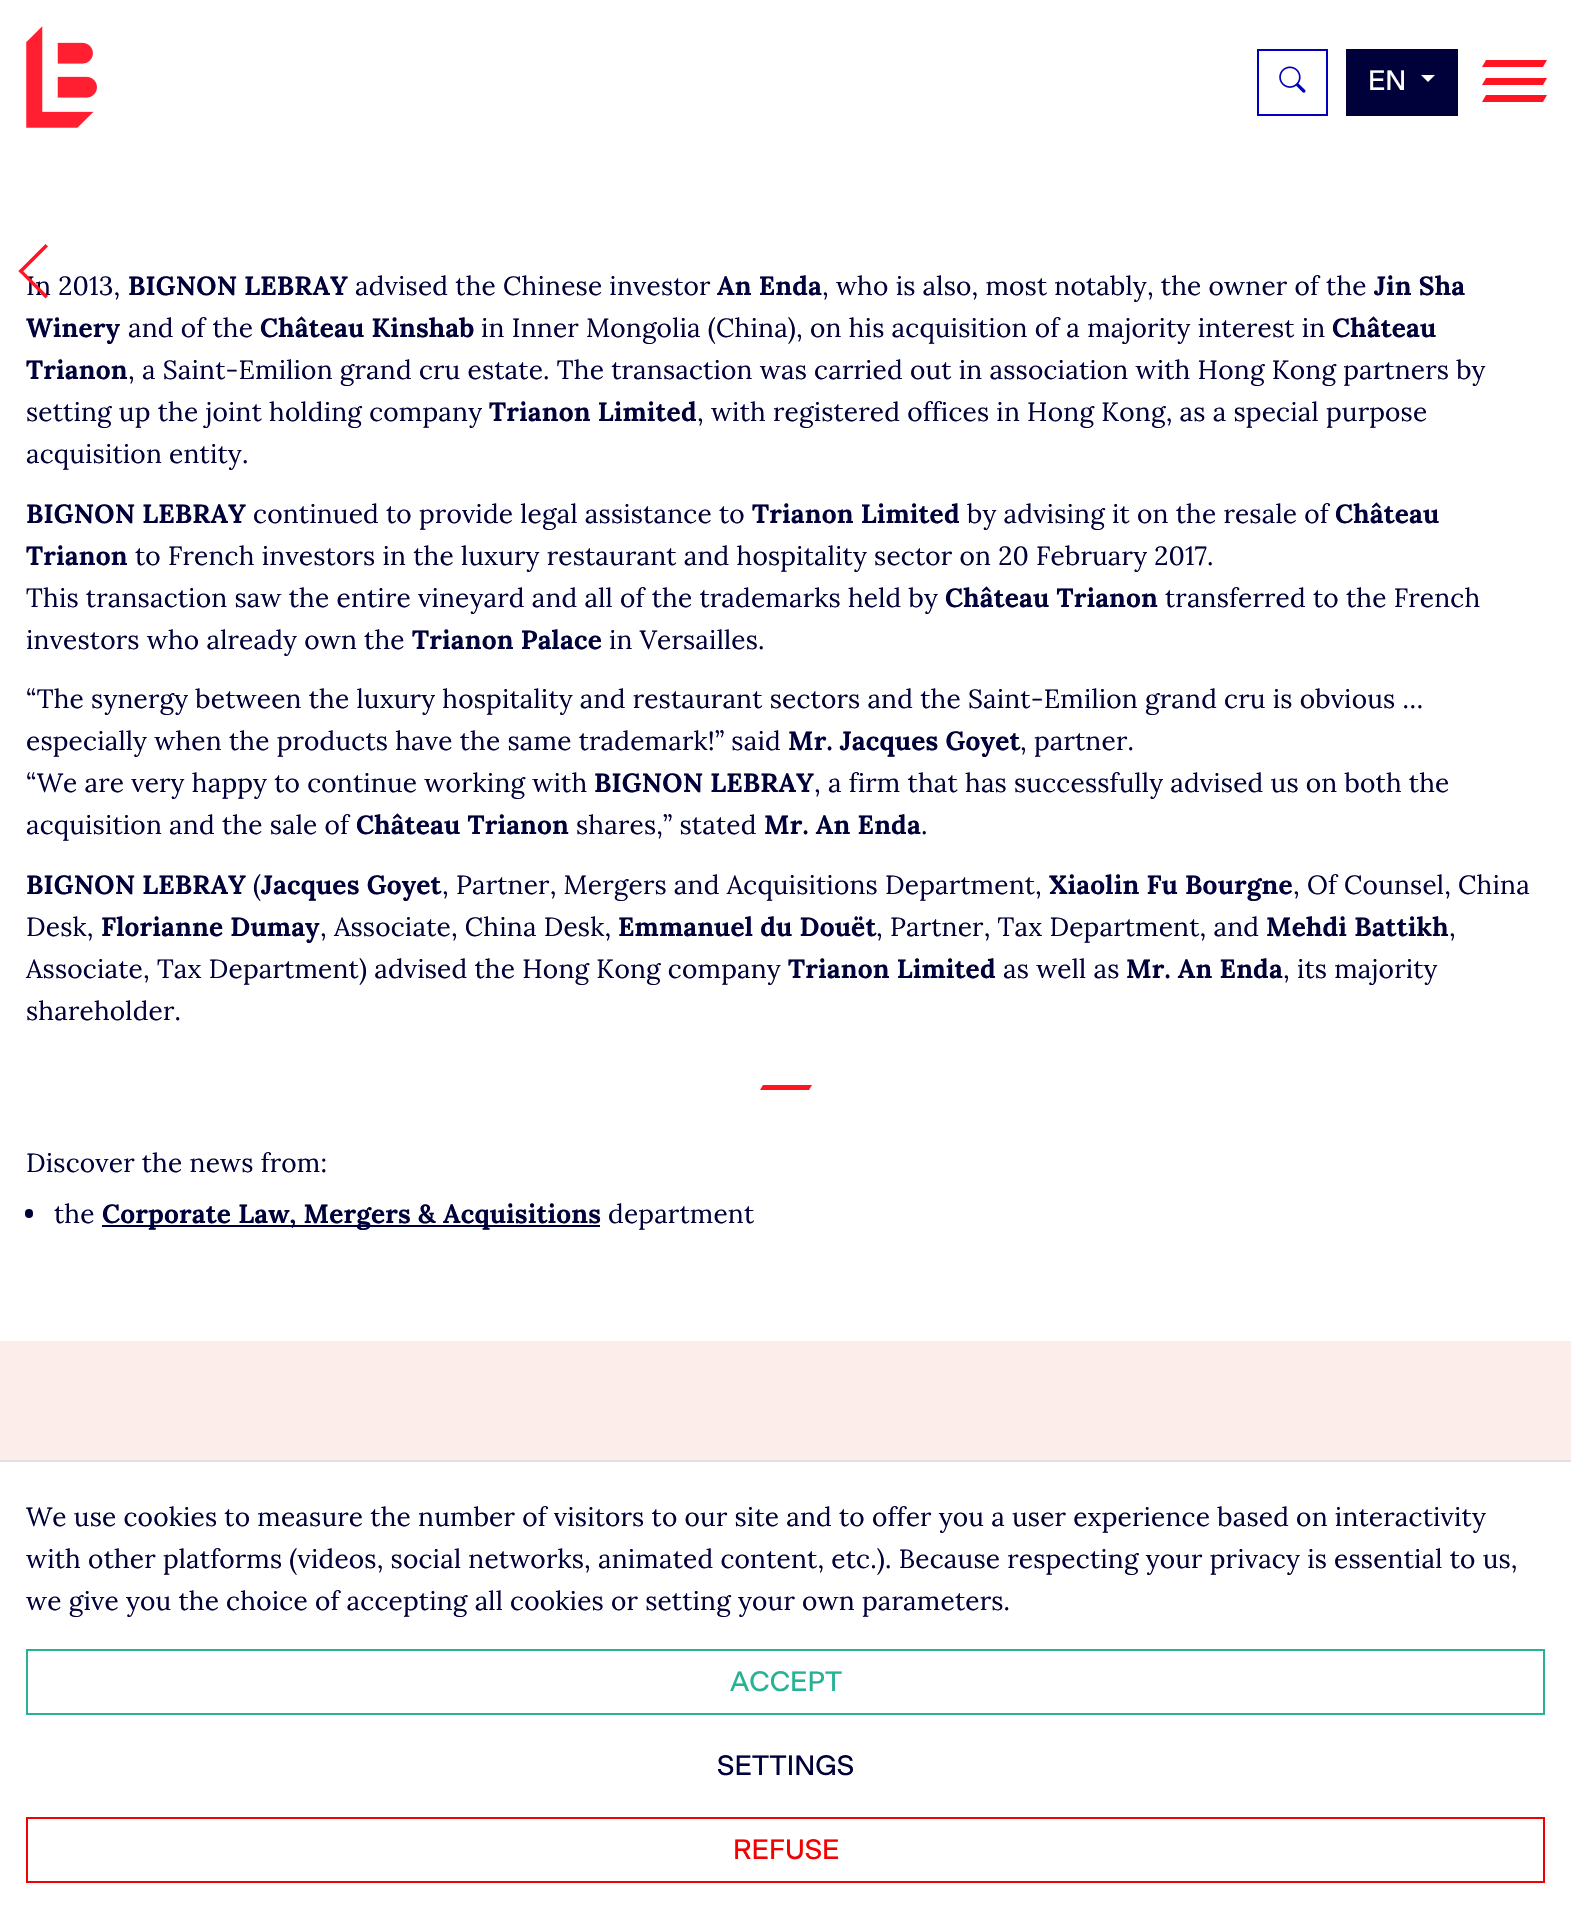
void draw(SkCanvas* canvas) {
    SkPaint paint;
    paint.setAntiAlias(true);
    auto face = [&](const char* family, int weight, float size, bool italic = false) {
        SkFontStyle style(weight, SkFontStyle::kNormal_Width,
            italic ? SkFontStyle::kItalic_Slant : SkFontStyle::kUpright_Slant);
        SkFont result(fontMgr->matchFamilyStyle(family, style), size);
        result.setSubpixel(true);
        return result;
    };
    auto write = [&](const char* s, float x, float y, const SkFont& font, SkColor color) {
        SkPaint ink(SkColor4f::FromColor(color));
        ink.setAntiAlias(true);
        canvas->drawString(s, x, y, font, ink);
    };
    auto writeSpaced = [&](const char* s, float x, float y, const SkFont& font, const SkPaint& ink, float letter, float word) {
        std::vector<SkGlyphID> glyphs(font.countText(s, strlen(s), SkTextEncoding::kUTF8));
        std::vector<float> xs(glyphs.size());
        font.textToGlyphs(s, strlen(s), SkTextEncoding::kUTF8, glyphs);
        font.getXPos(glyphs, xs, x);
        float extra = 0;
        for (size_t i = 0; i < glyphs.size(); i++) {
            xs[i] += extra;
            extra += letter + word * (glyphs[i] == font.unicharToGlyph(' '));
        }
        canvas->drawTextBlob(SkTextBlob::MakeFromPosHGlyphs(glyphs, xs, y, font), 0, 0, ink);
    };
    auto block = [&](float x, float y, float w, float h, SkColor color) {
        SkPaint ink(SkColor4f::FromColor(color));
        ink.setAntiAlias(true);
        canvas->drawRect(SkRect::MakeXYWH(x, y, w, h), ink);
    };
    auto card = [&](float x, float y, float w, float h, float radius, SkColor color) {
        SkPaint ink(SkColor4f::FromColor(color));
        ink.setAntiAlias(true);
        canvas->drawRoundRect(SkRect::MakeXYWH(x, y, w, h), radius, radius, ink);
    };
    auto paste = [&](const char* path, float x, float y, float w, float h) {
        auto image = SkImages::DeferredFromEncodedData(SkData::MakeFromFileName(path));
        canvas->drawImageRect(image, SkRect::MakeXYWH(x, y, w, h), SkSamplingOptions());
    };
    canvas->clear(SK_ColorWHITE);
    paste("pic1.png", 26, 26, 71, 102);
    paint.setStyle(SkPaint::kStroke_Style);
    paint.setStrokeWidth(2);
    paint.setColor(SkColorSetRGB(0, 0, 187));
    canvas->drawRect(SkRect::MakeXYWH(1258, 50, 69, 65), paint);
    paste("pic2.png", 1279, 66, 27, 27);
    block(1346, 49, 112, 67, SkColorSetRGB(0, 0, 58));
    auto kFont1 = face("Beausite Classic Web", 400, 28);
    write("EN", 1368, 90, kFont1, SK_ColorWHITE);
    paint.setStyle(SkPaint::kFill_Style);
    paint.setColor(SK_ColorWHITE);
    canvas->drawPath(SkPathBuilder().moveTo(1421, 75).lineTo(1435, 75).lineTo(1428, 82).close().detach(), paint);
    paint.setColor(SkColorSetRGB(255, 21, 33));
    canvas->drawPath(SkPathBuilder().moveTo(1486, 60).lineTo(1547, 60).lineTo(1543, 67).lineTo(1482, 67).close().detach(), paint);
    canvas->drawPath(SkPathBuilder().moveTo(1486, 78).lineTo(1547, 78).lineTo(1543, 85).lineTo(1482, 85).close().detach(), paint);
    canvas->drawPath(SkPathBuilder().moveTo(1486, 95).lineTo(1547, 95).lineTo(1543, 102).lineTo(1482, 102).close().detach(), paint);
    auto kFont2 = face("Lora", 400, 26.25f);
    paint.setColor(SkColorSetRGB(0, 0, 58));
    writeSpaced("In 2013,", 26, 295, kFont2, paint, 0.18f, 0);
    paint.setColor(SkColorSetRGB(255, 21, 33));
    canvas->drawPath(SkPathBuilder().moveTo(21, 269).lineTo(48, 296).lineTo(45.5f, 298.5f).lineTo(18.5f, 271).close().detach(), paint);
    canvas->drawPath(SkPathBuilder().moveTo(45.5f, 244).lineTo(48, 246.5f).lineTo(21, 273.5f).lineTo(18.5f, 271).close().detach(), paint);
    auto kFont3 = face("Lora", 700, 26.25f);
    paint.setColor(SkColorSetRGB(0, 0, 58));
    writeSpaced("BIGNON LEBRAY", 128, 295, kFont3, paint, 0.18f, 0);
    writeSpaced("advised the Chinese investor", 355, 295, kFont2, paint, 0.18f, 0);
    writeSpaced("An Enda", 717, 295, kFont3, paint, 0.18f, 0);
    writeSpaced(", who is also, most notably, the owner of the", 822, 295, kFont2, paint, 0.18f, 0);
    writeSpaced("Jin Sha", 1374, 295, kFont3, paint, 0.18f, 0);
    writeSpaced("Winery", 26, 337, kFont3, paint, 0.18f, 0);
    writeSpaced("and of the", 128, 337, kFont2, paint, 0.18f, 0);
    writeSpaced("Château Kinshab", 260, 337, kFont3, paint, 0.18f, 0);
    writeSpaced("in Inner Mongolia (China), on his acquisition of a majority interest in", 481, 337, kFont2, paint, 0.18f, 0);
    writeSpaced("Château", 1332, 337, kFont3, paint, 0.18f, 0);
    writeSpaced("Trianon", 26, 379, kFont3, paint, 0.18f, 0);
    writeSpaced(", a Saint-Emilion grand cru estate. The transaction was carried out in association with Hong Kong partners by", 128, 379, kFont2, paint, 0.18f, 0);
    writeSpaced("setting up the joint holding company", 26, 421, kFont2, paint, 0.18f, 0);
    writeSpaced("Trianon Limited", 489, 421, kFont3, paint, 0.18f, 0);
    writeSpaced(", with registered offices in Hong Kong, as a special purpose", 697, 421, kFont2, paint, 0.18f, 0);
    writeSpaced("acquisition entity.", 26, 463, kFont2, paint, 0.18f, 0);
    writeSpaced("BIGNON LEBRAY", 26, 523, kFont3, paint, 0.18f, 0);
    writeSpaced("continued to provide legal assistance to", 253, 523, kFont2, paint, 0.18f, 0);
    writeSpaced("Trianon Limited", 752, 523, kFont3, paint, 0.18f, 0);
    writeSpaced("by advising it on the resale of", 967, 523, kFont2, paint, 0.18f, 0);
    writeSpaced("Château", 1335, 523, kFont3, paint, 0.18f, 0);
    writeSpaced("Trianon", 26, 565, kFont3, paint, 0.18f, 0);
    writeSpaced("to French investors in the luxury restaurant and hospitality sector on 20 February 2017.", 135, 565, kFont2, paint, 0.18f, 0);
    writeSpaced("This transaction saw the entire vineyard and all of the trademarks held by", 26, 607, kFont2, paint, 0.18f, 0);
    writeSpaced("Château Trianon", 945, 607, kFont3, paint, 0.18f, 0);
    writeSpaced("transferred to the French", 1165, 607, kFont2, paint, 0.18f, 0);
    writeSpaced("investors who already own the", 26, 649, kFont2, paint, 0.18f, 0);
    writeSpaced("Trianon Palace", 412, 649, kFont3, paint, 0.18f, 0);
    writeSpaced("in Versailles.", 609, 649, kFont2, paint, 0.18f, 0);
    writeSpaced("“The synergy between the luxury hospitality and restaurant sectors and the Saint-Emilion grand cru is obvious …", 26, 708, kFont2, paint, 0.18f, 0);
    writeSpaced("especially when the products have the same trademark!” said", 26, 750, kFont2, paint, 0.18f, 0);
    writeSpaced("Mr. Jacques Goyet", 788, 750, kFont3, paint, 0.18f, 0);
    writeSpaced(", partner.", 1020, 750, kFont2, paint, 0.18f, 0);
    writeSpaced("“We are very happy to continue working with", 26, 792, kFont2, paint, 0.18f, 0);
    writeSpaced("BIGNON LEBRAY", 594, 792, kFont3, paint, 0.18f, 0);
    writeSpaced(", a firm that has successfully advised us on both the", 814, 792, kFont2, paint, 0.18f, 0);
    writeSpaced("acquisition and the sale of", 26, 834, kFont2, paint, 0.18f, 0);
    writeSpaced("Château Trianon", 356, 834, kFont3, paint, 0.18f, 0);
    writeSpaced("shares,” stated", 576, 834, kFont2, paint, 0.18f, 0);
    writeSpaced("Mr. An Enda", 764, 834, kFont3, paint, 0.18f, 0);
    writeSpaced(".", 921, 834, kFont2, paint, 0.18f, 0);
    writeSpaced("BIGNON LEBRAY", 26, 894, kFont3, paint, 0.18f, 0);
    writeSpaced("(", 253, 894, kFont2, paint, 0.18f, 0);
    writeSpaced("Jacques Goyet", 261, 894, kFont3, paint, 0.18f, 0);
    writeSpaced(", Partner, Mergers and Acquisitions Department,", 442, 894, kFont2, paint, 0.18f, 0);
    writeSpaced("Xiaolin Fu Bourgne", 1049, 894, kFont3, paint, 0.18f, 0);
    writeSpaced(", Of Counsel, China", 1293, 894, kFont2, paint, 0.18f, 0);
    writeSpaced("Desk,", 26, 936, kFont2, paint, 0.18f, 0);
    writeSpaced("Florianne Dumay", 101, 936, kFont3, paint, 0.18f, 0);
    writeSpaced(", Associate, China Desk,", 320, 936, kFont2, paint, 0.18f, 0);
    writeSpaced("Emmanuel du Douët", 618, 936, kFont3, paint, 0.18f, 0);
    writeSpaced(", Partner, Tax Department, and", 876, 936, kFont2, paint, 0.18f, 0);
    writeSpaced("Mehdi Battikh", 1266, 936, kFont3, paint, 0.18f, 0);
    writeSpaced(",", 1449, 936, kFont2, paint, 0.18f, 0);
    writeSpaced("Associate, Tax Department) advised the Hong Kong company", 26, 978, kFont2, paint, 0.18f, 0);
    writeSpaced("Trianon Limited", 788, 978, kFont3, paint, 0.18f, 0);
    writeSpaced("as well as", 1003, 978, kFont2, paint, 0.18f, 0);
    writeSpaced("Mr. An Enda", 1126, 978, kFont3, paint, 0.18f, 0);
    writeSpaced(", its majority", 1283, 978, kFont2, paint, 0.18f, 0);
    writeSpaced("shareholder.", 26, 1020, kFont2, paint, 0.18f, 0);
    paint.setColor(SkColorSetRGB(255, 21, 33));
    canvas->drawPath(SkPathBuilder().moveTo(763, 1085).lineTo(812, 1085).lineTo(809, 1090).lineTo(760, 1090).close().detach(), paint);
    paint.setColor(SkColorSetRGB(0, 0, 58));
    writeSpaced("Discover the news from:", 26, 1172, kFont2, paint, 0.18f, 0);
    card(25, 1209, 8, 9, 4, SkColorSetRGB(0, 0, 58));
    writeSpaced("the", 54, 1223, kFont2, paint, 0.18f, 0);
    block(102, 1225, 498, 2, SkColorSetRGB(0, 0, 58));
    writeSpaced("Corporate Law, Mergers & Acquisitions", 102, 1223, kFont3, paint, 0.18f, 0);
    writeSpaced("department", 608, 1223, kFont2, paint, 0.18f, 0);
    block(0, 1341, 1571, 119, SkColorSetRGB(252, 237, 235));
    block(0, 1460, 1571, 2, SkColorSetRGB(222, 226, 230));
    writeSpaced("We use cookies to measure the number of visitors to our site and to offer you a user experience based on interactivity", 26, 1526, kFont2, paint, 0.18f, 0);
    writeSpaced("with other platforms (videos, social networks, animated content, etc.). Because respecting your privacy is essential to us,", 26, 1568, kFont2, paint, 0.18f, 0);
    writeSpaced("we give you the choice of accepting all cookies or setting your own parameters.", 26, 1610, kFont2, paint, 0.18f, 0);
    paint.setStyle(SkPaint::kStroke_Style);
    paint.setColor(SkColorSetRGB(39, 178, 150));
    canvas->drawRect(SkRect::MakeXYWH(27, 1650, 1517, 64), paint);
    write("ACCEPT", 730, 1691, kFont1, SkColorSetRGB(39, 178, 150));
    write("SETTINGS", 717, 1775, kFont1, SkColorSetRGB(0, 0, 58));
    paint.setColor(SkColorSetRGB(243, 0, 0));
    canvas->drawRect(SkRect::MakeXYWH(27, 1818, 1517, 64), paint);
    write("REFUSE", 733, 1859, kFont1, SkColorSetRGB(243, 0, 0));
}
